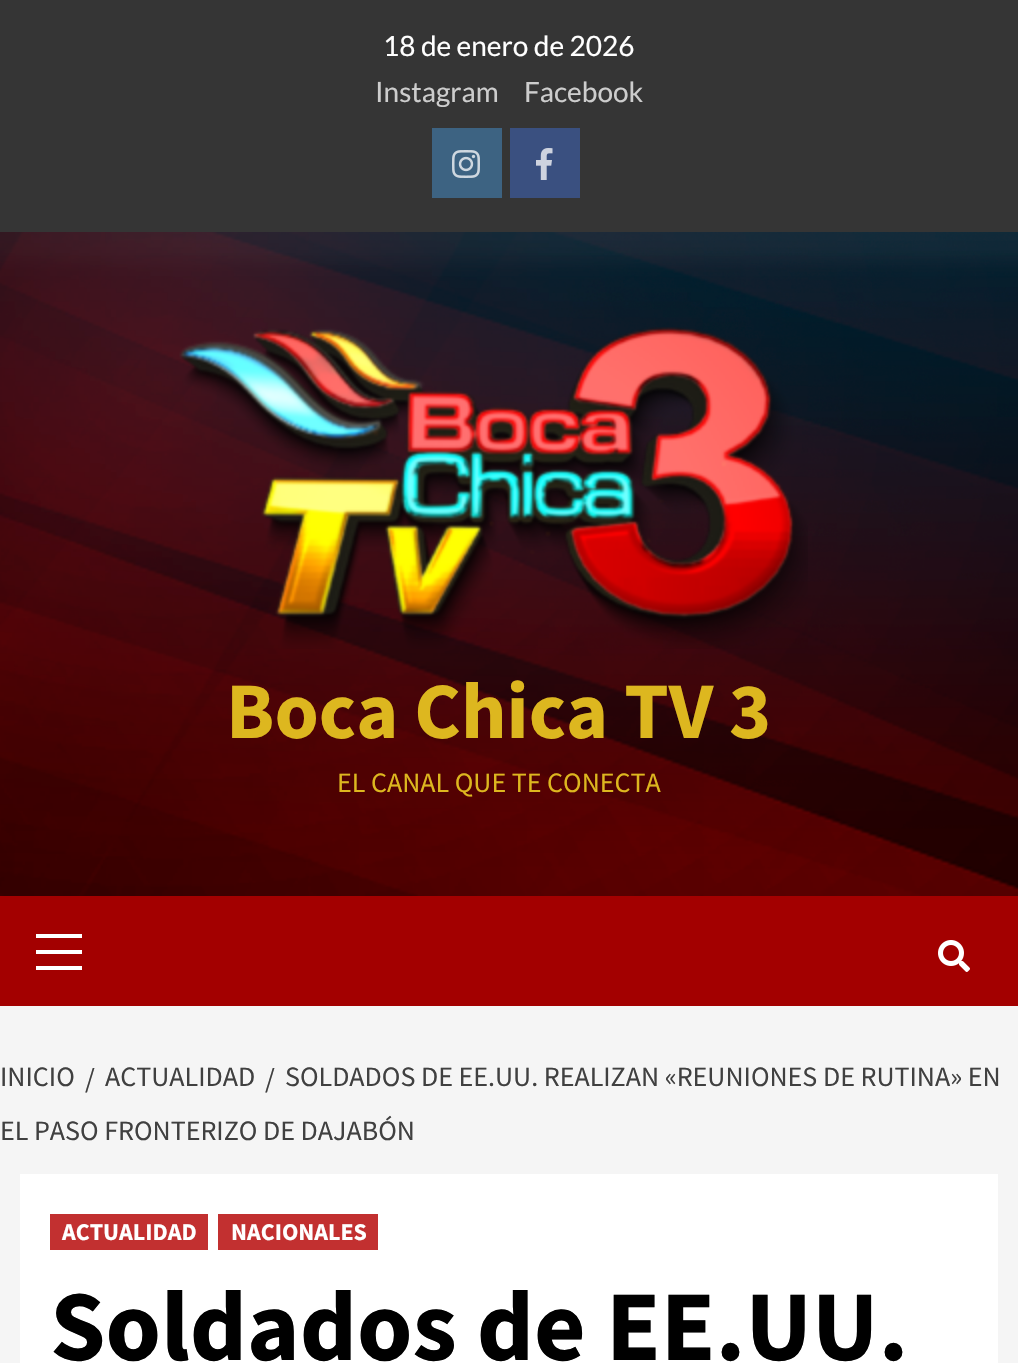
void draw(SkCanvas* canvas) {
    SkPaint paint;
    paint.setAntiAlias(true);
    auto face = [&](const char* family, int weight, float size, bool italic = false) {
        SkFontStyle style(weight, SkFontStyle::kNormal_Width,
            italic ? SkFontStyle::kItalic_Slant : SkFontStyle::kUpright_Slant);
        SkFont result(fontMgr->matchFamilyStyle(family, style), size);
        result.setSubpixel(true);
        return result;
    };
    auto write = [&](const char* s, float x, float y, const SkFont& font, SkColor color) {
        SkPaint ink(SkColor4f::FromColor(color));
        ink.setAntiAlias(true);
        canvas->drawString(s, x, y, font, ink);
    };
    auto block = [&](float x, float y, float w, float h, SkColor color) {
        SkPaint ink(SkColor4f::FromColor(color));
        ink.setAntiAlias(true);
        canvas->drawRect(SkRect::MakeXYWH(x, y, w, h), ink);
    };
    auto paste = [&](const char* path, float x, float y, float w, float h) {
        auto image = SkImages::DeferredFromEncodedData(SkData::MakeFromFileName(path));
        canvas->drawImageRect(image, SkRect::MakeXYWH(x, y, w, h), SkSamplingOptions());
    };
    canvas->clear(SkColorSetRGB(245, 245, 245));
    block(0, 0, 1018, 232, SkColorSetRGB(53, 53, 53));
    auto kFont1 = face("Lato", 400, 28);
    write("18 de enero de 2026", 383, 56, kFont1, SK_ColorWHITE);
    write("Instagram", 375, 102, kFont1, SkColorSetRGB(205, 205, 205));
    write("Facebook", 524, 102, kFont1, SkColorSetRGB(205, 205, 205));
    block(432, 128, 70, 70, SkColorSetRGB(61, 99, 130));
    paste("pic1.png", 452, 150, 28, 28);
    block(510, 128, 70, 70, SkColorSetRGB(58, 80, 128));
    paste("pic2.png", 536, 148, 17, 32);
    paste("pic3.png", 0, 232, 1018, 664);
    paste("pic4.png", 179, 327, 629, 322);
    auto kFont2 = face("Source Sans Pro", 700, 80);
    write("Boca Chica TV 3", 226, 738, kFont2, SkColorSetRGB(221, 183, 31));
    auto kFont3 = face("Source Sans Pro", 400, 28);
    write("EL CANAL QUE TE CONECTA", 337, 792, kFont3, SkColorSetRGB(221, 183, 31));
    block(0, 896, 1018, 110, SkColorSetRGB(163, 0, 0));
    block(36, 950, 46, 4, SK_ColorWHITE);
    block(36, 934, 46, 4, SK_ColorWHITE);
    block(36, 966, 46, 4, SK_ColorWHITE);
    paste("pic5.png", 938, 940, 32, 32);
    write("INICIO", 0, 1086, kFont3, SkColorSetRGB(64, 64, 64));
    write("/", 265, 1088, kFont3, SkColorSetRGB(64, 64, 64));
    write("SOLDADOS DE EE.UU. REALIZAN «REUNIONES DE RUTINA» EN", 285, 1086, kFont3, SkColorSetRGB(64, 64, 64));
    write("EL PASO FRONTERIZO DE DAJABÓN", 0, 1140, kFont3, SkColorSetRGB(64, 64, 64));
    write("/", 85, 1088, kFont3, SkColorSetRGB(64, 64, 64));
    write("ACTUALIDAD", 105, 1086, kFont3, SkColorSetRGB(64, 64, 64));
    block(20, 1174, 978, 189, SK_ColorWHITE);
    block(50, 1214, 158, 36, SkColorSetRGB(194, 48, 48));
    auto kFont4 = face("Source Sans Pro", 700, 24);
    write("ACTUALIDAD", 62, 1240, kFont4, SK_ColorWHITE);
    block(218, 1214, 160, 36, SkColorSetRGB(194, 48, 48));
    write("NACIONALES", 231, 1240, kFont4, SK_ColorWHITE);
    auto kFont5 = face("Source Sans Pro", 700, 100);
    write("Soldados de EE.UU.", 50, 1360, kFont5, SK_ColorBLACK);
}
